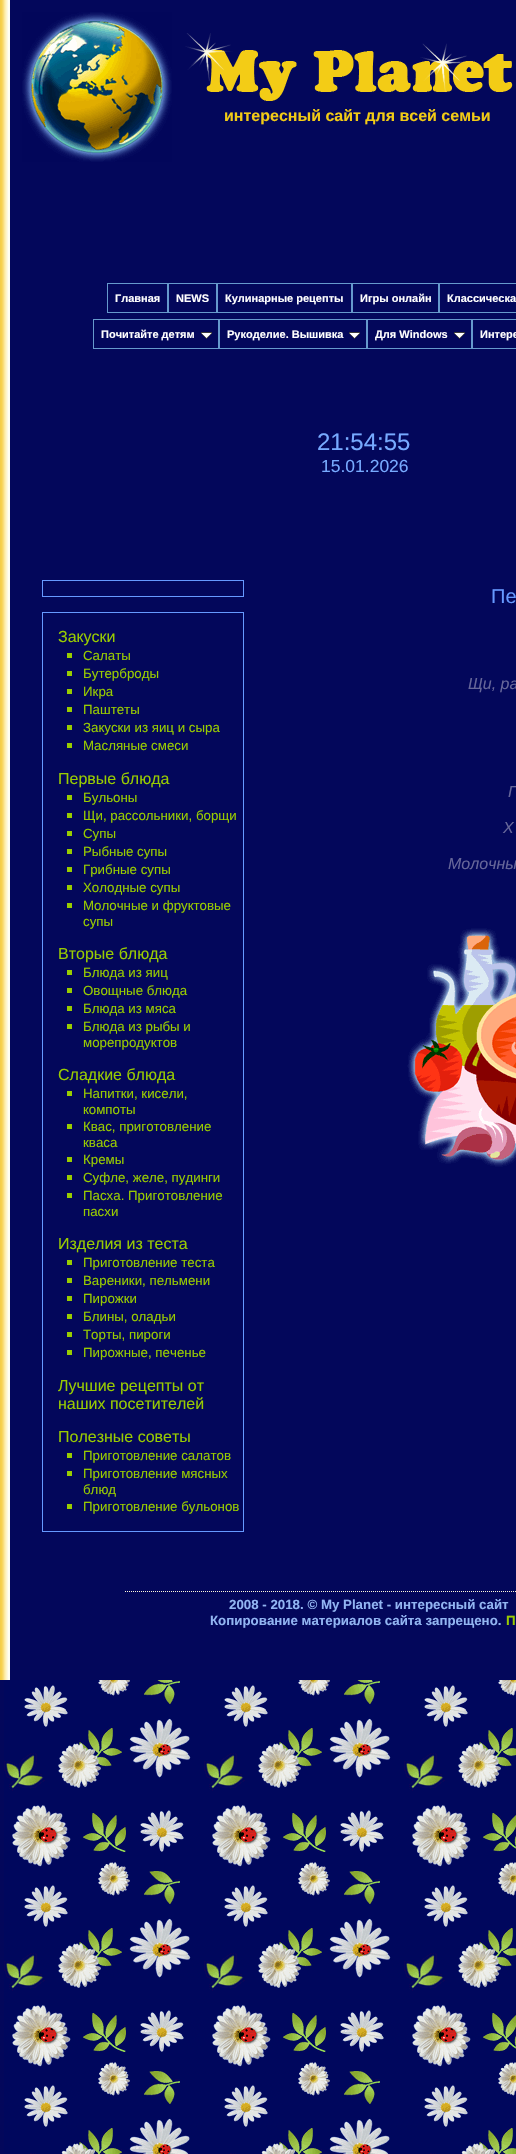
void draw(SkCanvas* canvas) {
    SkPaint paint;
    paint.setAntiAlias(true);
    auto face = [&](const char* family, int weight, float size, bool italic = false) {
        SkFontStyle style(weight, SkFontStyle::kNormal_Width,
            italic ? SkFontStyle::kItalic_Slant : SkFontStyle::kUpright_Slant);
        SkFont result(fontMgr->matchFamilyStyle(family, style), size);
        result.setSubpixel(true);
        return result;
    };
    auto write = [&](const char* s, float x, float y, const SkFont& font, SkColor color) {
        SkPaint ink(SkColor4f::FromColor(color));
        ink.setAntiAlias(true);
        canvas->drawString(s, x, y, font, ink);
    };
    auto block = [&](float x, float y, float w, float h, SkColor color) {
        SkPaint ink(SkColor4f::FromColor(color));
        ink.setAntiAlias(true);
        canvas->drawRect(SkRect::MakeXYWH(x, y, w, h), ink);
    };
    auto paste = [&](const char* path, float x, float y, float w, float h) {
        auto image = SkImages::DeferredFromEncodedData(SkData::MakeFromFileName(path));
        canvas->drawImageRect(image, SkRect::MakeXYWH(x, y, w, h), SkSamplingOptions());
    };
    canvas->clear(SkColorSetRGB(3, 7, 91));
    paste("pic1.png", 4, 1680, 512, 474);
    paste("pic2.png", 0, 0, 10, 1680);
    paste("pic3.png", 22, 12, 150, 150);
    paste("pic4.png", 185, 33, 328, 68);
    auto kFont1 = face("Liberation Sans", 700, 16);
    write("интересный сайт для всей семьи", 224, 121, kFont1, SkColorSetRGB(242, 203, 21));
    paint.setStyle(SkPaint::kStroke_Style);
    paint.setStrokeWidth(1);
    paint.setColor(SkColorSetRGB(102, 153, 204));
    canvas->drawRect(SkRect::MakeXYWH(107.5f, 283.5f, 60, 29), paint);
    auto kFont2 = face("Liberation Sans", 700, 11);
    write("Главная", 115, 302, kFont2, SK_ColorWHITE);
    canvas->drawRect(SkRect::MakeXYWH(168.5f, 283.5f, 48, 29), paint);
    write("NEWS", 176, 302, kFont2, SK_ColorWHITE);
    canvas->drawRect(SkRect::MakeXYWH(217.5f, 283.5f, 134, 29), paint);
    write("Кулинарные рецепты", 225, 302, kFont2, SK_ColorWHITE);
    canvas->drawRect(SkRect::MakeXYWH(352.5f, 283.5f, 86, 29), paint);
    write("Игры онлайн", 360, 302, kFont2, SK_ColorWHITE);
    canvas->drawRect(SkRect::MakeXYWH(439.5f, 283.5f, 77, 29), paint);
    write("Классическа", 447, 302, kFont2, SK_ColorWHITE);
    canvas->drawRect(SkRect::MakeXYWH(93.5f, 319.5f, 125, 29), paint);
    write("Почитайте детям", 101, 338, kFont2, SK_ColorWHITE);
    paste("pic5.png", 201, 332, 11, 7);
    canvas->drawRect(SkRect::MakeXYWH(219.5f, 319.5f, 147, 29), paint);
    write("Рукоделие. Вышивка", 227, 338, kFont2, SK_ColorWHITE);
    paste("pic5.png", 349, 332, 11, 7);
    canvas->drawRect(SkRect::MakeXYWH(367.5f, 319.5f, 104, 29), paint);
    write("Для Windows", 375, 338, kFont2, SK_ColorWHITE);
    paste("pic5.png", 454, 332, 11, 7);
    canvas->drawRect(SkRect::MakeXYWH(472.5f, 319.5f, 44, 29), paint);
    write("Интере", 480, 338, kFont2, SK_ColorWHITE);
    auto kFont3 = face("Liberation Sans", 400, 24);
    write("21:54:55", 317, 450, kFont3, SkColorSetRGB(119, 170, 255));
    auto kFont4 = face("Liberation Sans", 400, 17.5f);
    write("15.01.2026", 321, 472, kFont4, SkColorSetRGB(119, 170, 255));
    paint.setColor(SkColorSetRGB(102, 153, 255));
    canvas->drawRect(SkRect::MakeXYWH(42.5f, 580.5f, 201, 16), paint);
    canvas->drawRect(SkRect::MakeXYWH(42.5f, 612.5f, 201, 919), paint);
    auto kFont5 = face("Liberation Sans", 400, 16);
    write("Закуски", 58, 642, kFont5, SkColorSetRGB(153, 204, 0));
    block(67, 653, 5, 5, SkColorSetRGB(153, 204, 0));
    auto kFont6 = face("Liberation Sans", 400, 13.3f);
    write("Салаты", 83, 660, kFont6, SkColorSetRGB(153, 204, 0));
    block(67, 671, 5, 5, SkColorSetRGB(153, 204, 0));
    write("Бутерброды", 83, 678, kFont6, SkColorSetRGB(153, 204, 0));
    block(67, 689, 5, 5, SkColorSetRGB(153, 204, 0));
    write("Икра", 83, 696, kFont6, SkColorSetRGB(153, 204, 0));
    block(67, 707, 5, 5, SkColorSetRGB(153, 204, 0));
    write("Паштеты", 83, 714, kFont6, SkColorSetRGB(153, 204, 0));
    block(67, 725, 5, 5, SkColorSetRGB(153, 204, 0));
    write("Закуски из яиц и сыра", 83, 732, kFont6, SkColorSetRGB(153, 204, 0));
    block(67, 743, 5, 5, SkColorSetRGB(153, 204, 0));
    write("Масляные смеси", 83, 750, kFont6, SkColorSetRGB(153, 204, 0));
    write("Первые блюда", 58, 784, kFont5, SkColorSetRGB(153, 204, 0));
    block(67, 795, 5, 5, SkColorSetRGB(153, 204, 0));
    write("Бульоны", 83, 802, kFont6, SkColorSetRGB(153, 204, 0));
    block(67, 813, 5, 5, SkColorSetRGB(153, 204, 0));
    write("Щи, рассольники, борщи", 83, 820, kFont6, SkColorSetRGB(153, 204, 0));
    block(67, 831, 5, 5, SkColorSetRGB(153, 204, 0));
    write("Супы", 83, 838, kFont6, SkColorSetRGB(153, 204, 0));
    block(67, 849, 5, 5, SkColorSetRGB(153, 204, 0));
    write("Рыбные супы", 83, 856, kFont6, SkColorSetRGB(153, 204, 0));
    block(67, 867, 5, 5, SkColorSetRGB(153, 204, 0));
    write("Грибные супы", 83, 874, kFont6, SkColorSetRGB(153, 204, 0));
    block(67, 885, 5, 5, SkColorSetRGB(153, 204, 0));
    write("Холодные супы", 83, 892, kFont6, SkColorSetRGB(153, 204, 0));
    block(67, 903, 5, 5, SkColorSetRGB(153, 204, 0));
    write("Молочные и фруктовые", 83, 910, kFont6, SkColorSetRGB(153, 204, 0));
    write("супы", 83, 926, kFont6, SkColorSetRGB(153, 204, 0));
    write("Вторые блюда", 58, 959, kFont5, SkColorSetRGB(153, 204, 0));
    block(67, 970, 5, 5, SkColorSetRGB(153, 204, 0));
    write("Блюда из яиц", 83, 977, kFont6, SkColorSetRGB(153, 204, 0));
    block(67, 988, 5, 5, SkColorSetRGB(153, 204, 0));
    write("Овощные блюда", 83, 995, kFont6, SkColorSetRGB(153, 204, 0));
    block(67, 1006, 5, 5, SkColorSetRGB(153, 204, 0));
    write("Блюда из мяса", 83, 1013, kFont6, SkColorSetRGB(153, 204, 0));
    block(67, 1024, 5, 5, SkColorSetRGB(153, 204, 0));
    write("Блюда из рыбы и", 83, 1031, kFont6, SkColorSetRGB(153, 204, 0));
    write("морепродуктов", 83, 1047, kFont6, SkColorSetRGB(153, 204, 0));
    write("Сладкие блюда", 58, 1080, kFont5, SkColorSetRGB(153, 204, 0));
    block(67, 1091, 5, 5, SkColorSetRGB(153, 204, 0));
    write("Напитки, кисели,", 83, 1098, kFont6, SkColorSetRGB(153, 204, 0));
    write("компоты", 83, 1114, kFont6, SkColorSetRGB(153, 204, 0));
    block(67, 1124, 5, 5, SkColorSetRGB(153, 204, 0));
    write("Квас, приготовление", 83, 1131, kFont6, SkColorSetRGB(153, 204, 0));
    write("кваса", 83, 1147, kFont6, SkColorSetRGB(153, 204, 0));
    block(67, 1157, 5, 5, SkColorSetRGB(153, 204, 0));
    write("Кремы", 83, 1164, kFont6, SkColorSetRGB(153, 204, 0));
    block(67, 1175, 5, 5, SkColorSetRGB(153, 204, 0));
    write("Суфле, желе, пудинги", 83, 1182, kFont6, SkColorSetRGB(153, 204, 0));
    block(67, 1193, 5, 5, SkColorSetRGB(153, 204, 0));
    write("Пасха. Приготовление", 83, 1200, kFont6, SkColorSetRGB(153, 204, 0));
    write("пасхи", 83, 1216, kFont6, SkColorSetRGB(153, 204, 0));
    write("Изделия из теста", 58, 1249, kFont5, SkColorSetRGB(153, 204, 0));
    block(67, 1260, 5, 5, SkColorSetRGB(153, 204, 0));
    write("Приготовление теста", 83, 1267, kFont6, SkColorSetRGB(153, 204, 0));
    block(67, 1278, 5, 5, SkColorSetRGB(153, 204, 0));
    write("Вареники, пельмени", 83, 1285, kFont6, SkColorSetRGB(153, 204, 0));
    block(67, 1296, 5, 5, SkColorSetRGB(153, 204, 0));
    write("Пирожки", 83, 1303, kFont6, SkColorSetRGB(153, 204, 0));
    block(67, 1314, 5, 5, SkColorSetRGB(153, 204, 0));
    write("Блины, оладьи", 83, 1321, kFont6, SkColorSetRGB(153, 204, 0));
    block(67, 1332, 5, 5, SkColorSetRGB(153, 204, 0));
    write("Торты, пироги", 83, 1339, kFont6, SkColorSetRGB(153, 204, 0));
    block(67, 1350, 5, 5, SkColorSetRGB(153, 204, 0));
    write("Пирожные, печенье", 83, 1357, kFont6, SkColorSetRGB(153, 204, 0));
    write("Лучшие рецепты от", 58, 1391, kFont5, SkColorSetRGB(153, 204, 0));
    write("наших посетителей", 58, 1409, kFont5, SkColorSetRGB(153, 204, 0));
    write("Полезные советы", 58, 1442, kFont5, SkColorSetRGB(153, 204, 0));
    block(67, 1453, 5, 5, SkColorSetRGB(153, 204, 0));
    write("Приготовление салатов", 83, 1460, kFont6, SkColorSetRGB(153, 204, 0));
    block(67, 1471, 5, 5, SkColorSetRGB(153, 204, 0));
    write("Приготовление мясных", 83, 1478, kFont6, SkColorSetRGB(153, 204, 0));
    write("блюд", 83, 1494, kFont6, SkColorSetRGB(153, 204, 0));
    block(67, 1504, 5, 5, SkColorSetRGB(153, 204, 0));
    write("Приготовление бульонов", 83, 1511, kFont6, SkColorSetRGB(153, 204, 0));
    auto kFont7 = face("Liberation Sans", 400, 20);
    write("Пе", 491, 603, kFont7, SkColorSetRGB(102, 153, 255));
    auto kFont8 = face("Liberation Sans", 400, 16, true);
    write("Щи, ра", 468, 689, kFont8, SkColorSetRGB(102, 102, 153));
    write("Г", 508, 797, kFont8, SkColorSetRGB(102, 102, 153));
    write("Х", 503, 833, kFont8, SkColorSetRGB(102, 102, 153));
    write("Молочны", 448, 869, kFont8, SkColorSetRGB(102, 102, 153));
    paste("pic6.png", 407, 928, 109, 239);
    paint.setColor(SkColorSetRGB(255, 248, 220));
    paint.setPathEffect(SkDashPathEffect::Make({{1, 1}}, 0));
    canvas->drawPath(SkPathBuilder().moveTo(125, 1591.5f).lineTo(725, 1591.5f).detach(), paint);
    paint.setPathEffect(nullptr);
    auto kFont9 = face("Liberation Sans", 700, 13.3f);
    write("2008 - 2018. © My Planet - интересный сайт", 229, 1609, kFont9, SkColorSetRGB(146, 181, 242));
    write("Копирование материалов сайта запрещено.", 210, 1625, kFont9, SkColorSetRGB(146, 181, 242));
    write("П", 506, 1625, kFont9, SkColorSetRGB(153, 204, 0));
}
